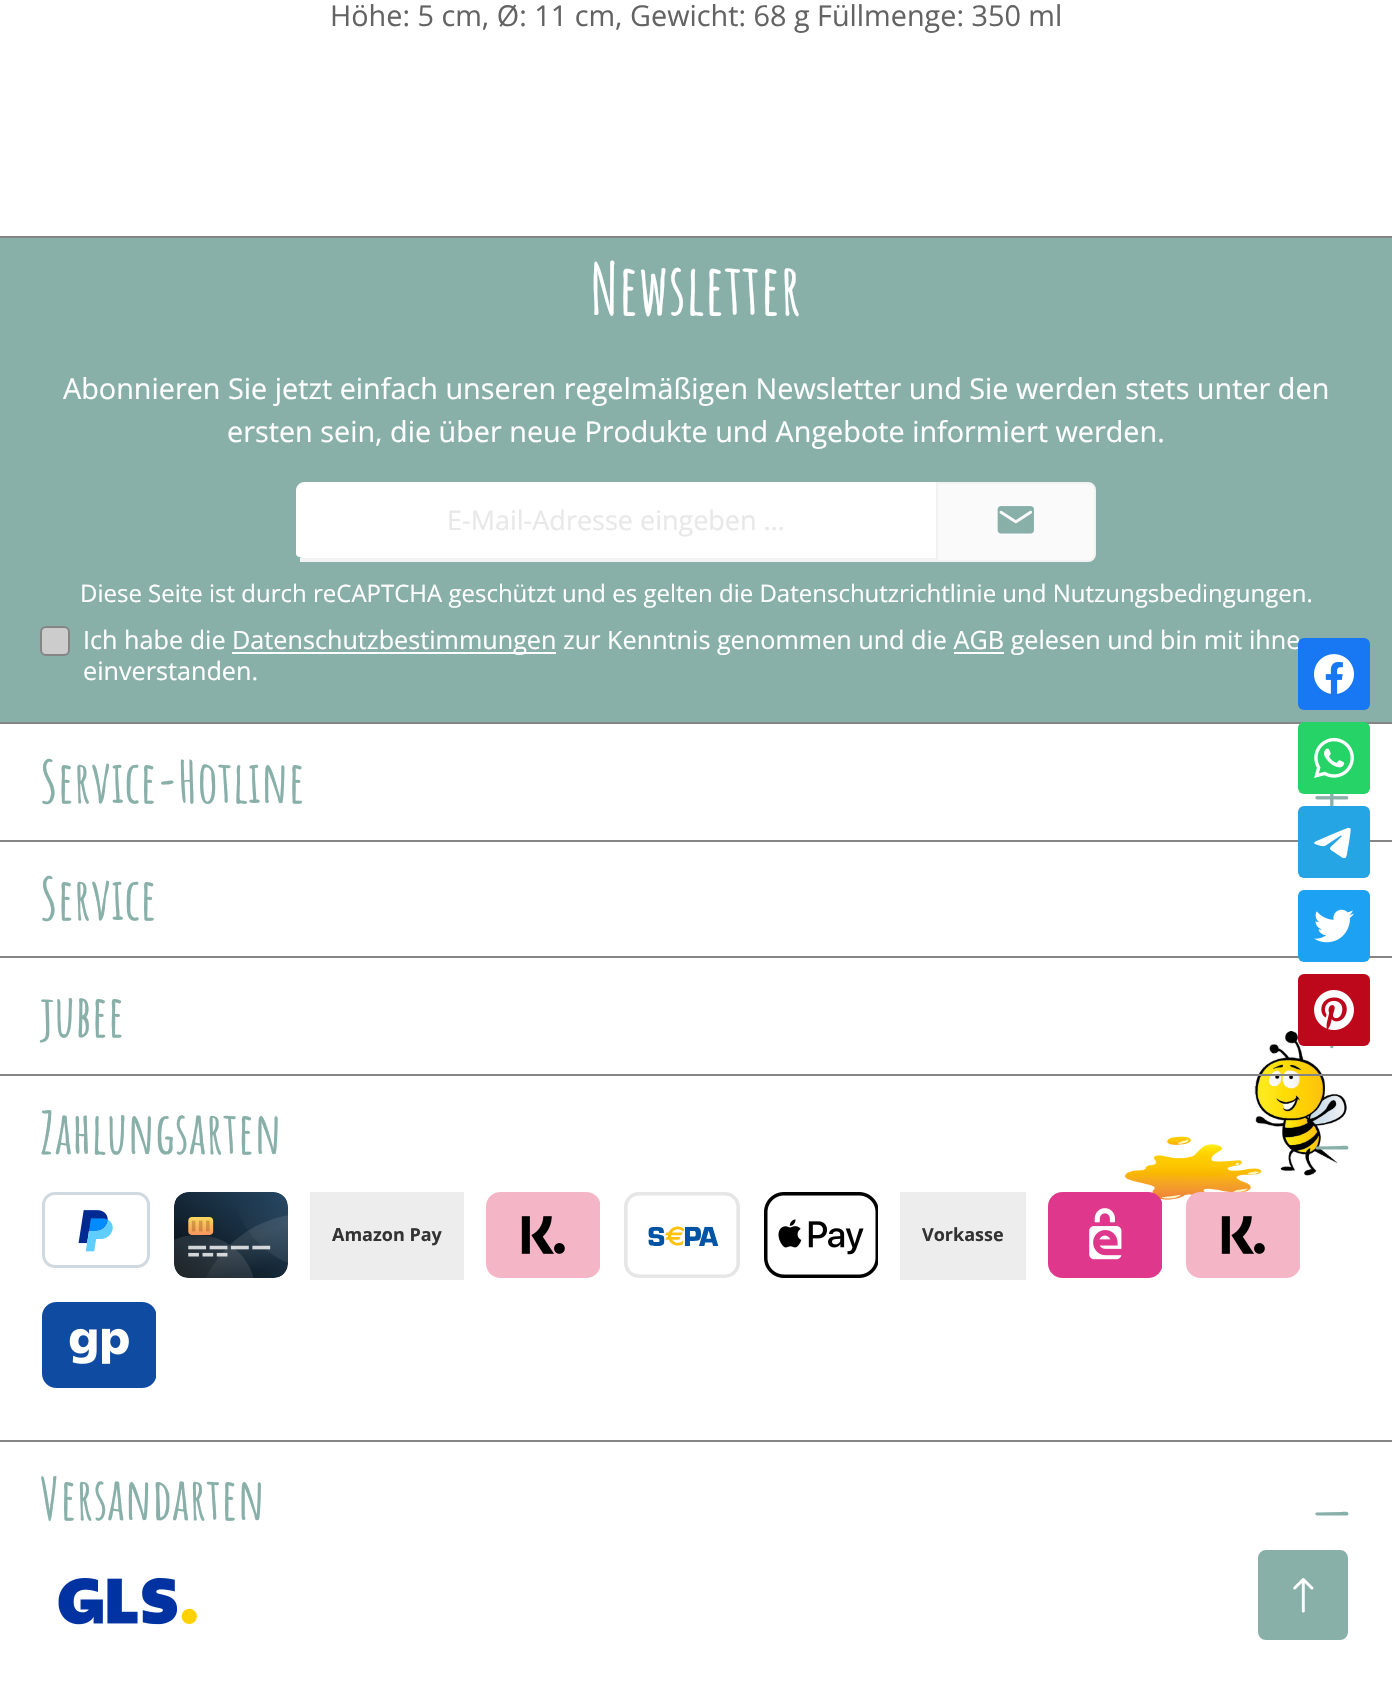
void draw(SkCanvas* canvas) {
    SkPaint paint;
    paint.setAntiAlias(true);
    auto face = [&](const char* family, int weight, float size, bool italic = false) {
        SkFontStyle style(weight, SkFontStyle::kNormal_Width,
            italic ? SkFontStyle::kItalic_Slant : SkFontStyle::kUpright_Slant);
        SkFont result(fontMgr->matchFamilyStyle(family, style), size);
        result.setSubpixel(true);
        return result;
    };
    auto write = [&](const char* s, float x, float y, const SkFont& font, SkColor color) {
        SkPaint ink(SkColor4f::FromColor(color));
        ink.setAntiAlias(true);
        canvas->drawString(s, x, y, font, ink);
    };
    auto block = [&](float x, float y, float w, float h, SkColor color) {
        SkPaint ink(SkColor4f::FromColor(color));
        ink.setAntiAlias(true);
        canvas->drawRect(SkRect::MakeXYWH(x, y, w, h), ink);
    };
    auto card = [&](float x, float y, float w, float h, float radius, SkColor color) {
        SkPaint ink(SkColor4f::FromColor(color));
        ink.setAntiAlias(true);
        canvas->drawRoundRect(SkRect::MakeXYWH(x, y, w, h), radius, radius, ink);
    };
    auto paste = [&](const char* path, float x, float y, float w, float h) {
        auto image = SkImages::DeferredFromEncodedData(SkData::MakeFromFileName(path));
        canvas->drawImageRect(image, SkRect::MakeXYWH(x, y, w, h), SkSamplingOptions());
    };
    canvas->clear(SK_ColorWHITE);
    auto kFont1 = face("Open Sans", 400, 28.8f);
    write("Höhe: 5 cm, Ø: 11 cm, Gewicht: 68 g Füllmenge: 350 ml", 330, 26, kFont1, SkColorSetRGB(99, 99, 99));
    block(0, 238, 1392, 484, SkColorSetRGB(136, 176, 169));
    block(0, 236, 1392, 2, SkColorSetRGB(133, 133, 133));
    block(0, 722, 1392, 2, SkColorSetRGB(133, 133, 133));
    auto kFont2 = face("Amatic SC", 700, 70);
    write("Newsletter", 590, 315, kFont2, SK_ColorWHITE);
    write("Abonnieren Sie jetzt einfach unseren regelmäßigen Newsletter und Sie werden stets unter den", 63, 399, kFont1, SK_ColorWHITE);
    write("ersten sein, die über neue Produkte und Angebote informiert werden.", 227, 442, kFont1, SK_ColorWHITE);
    paint.setColor(SK_ColorWHITE);
    canvas->drawPath(SkPathBuilder().moveTo(304, 482).lineTo(936, 482).lineTo(936, 558).lineTo(304, 558).cubicTo(300, 558, 296, 556, 296, 554).lineTo(296, 490).cubicTo(296, 486, 300, 482, 304, 482).close().detach(), paint);
    block(300, 558, 636, 4, SkColorSetRGB(242, 242, 242));
    auto kFont3 = face("Open Sans", 400, 27);
    write("E-Mail-Adresse eingeben ...", 447, 530, kFont3, SkColorSetRGB(232, 232, 232));
    paint.setColor(SkColorSetRGB(250, 250, 250));
    canvas->drawPath(SkPathBuilder().moveTo(937, 483).lineTo(1088, 483).cubicTo(1092, 483, 1095, 486, 1095, 490).lineTo(1095, 554).cubicTo(1095, 558, 1092, 561, 1088, 561).lineTo(937, 561).close().detach(), paint);
    paint.setStyle(SkPaint::kStroke_Style);
    paint.setStrokeWidth(2);
    paint.setColor(SkColorSetRGB(242, 242, 242));
    canvas->drawPath(SkPathBuilder().moveTo(937, 483).lineTo(1088, 483).cubicTo(1092, 483, 1095, 486, 1095, 490).lineTo(1095, 554).cubicTo(1095, 558, 1092, 561, 1088, 561).lineTo(937, 561).close().detach(), paint);
    paste("pic1.png", 997, 506, 37, 28);
    auto kFont4 = face("Open Sans", 400, 24);
    write("Diese Seite ist durch reCAPTCHA geschützt und es gelten die Datenschutzrichtlinie und Nutzungsbedingungen.", 80, 602, kFont4, SK_ColorWHITE);
    paint.setStyle(SkPaint::kFill_Style);
    paint.setColor(SkColorSetRGB(204, 204, 204));
    canvas->drawRoundRect(SkRect::MakeXYWH(41, 627, 28, 28), 5, 5, paint);
    paint.setStyle(SkPaint::kStroke_Style);
    paint.setColor(SkColorSetRGB(133, 133, 133));
    canvas->drawRoundRect(SkRect::MakeXYWH(41, 627, 28, 28), 5, 5, paint);
    auto kFont5 = face("Open Sans", 400, 25.2f);
    write("Ich habe die", 83, 649, kFont5, SK_ColorWHITE);
    block(232, 652, 324, 2, SK_ColorWHITE);
    write("Datenschutzbestimmungen zur Kenntnis genommen und die AGB gelesen und bin mit ihne", 232, 649, kFont5, SK_ColorWHITE);
    block(954, 652, 50, 2, SK_ColorWHITE);
    write("einverstanden.", 83, 680, kFont5, SK_ColorWHITE);
    paste("pic2.png", 1124, 1031, 223, 169);
    block(0, 840, 1392, 2, SkColorSetRGB(133, 133, 133));
    auto kFont6 = face("Amatic SC", 700, 57.5f);
    write("Service-Hotline", 40, 803, kFont6, SkColorSetRGB(136, 176, 169));
    paste("pic3.png", 1315, 794, 34, 12);
    block(0, 956, 1392, 2, SkColorSetRGB(133, 133, 133));
    write("Service", 40, 920, kFont6, SkColorSetRGB(136, 176, 169));
    block(0, 1074, 1392, 2, SkColorSetRGB(133, 133, 133));
    write("jubee", 40, 1037, kFont6, SkColorSetRGB(136, 176, 169));
    paste("pic4.png", 1330, 1046, 4, 3);
    block(0, 1440, 1392, 2, SkColorSetRGB(133, 133, 133));
    write("Zahlungsarten", 40, 1154, kFont6, SkColorSetRGB(136, 176, 169));
    paint.setStyle(SkPaint::kFill_Style);
    paint.setColor(SkColorSetRGB(136, 176, 169));
    canvas->drawPath(SkPathBuilder(SkPathFillType::kEvenOdd).moveTo(1317, 1149.5f).lineTo(1347, 1149.5f).lineTo(1348, 1149).lineTo(1348.5f, 1147.5f).cubicTo(1348, 1145, 1342, 1146, 1341.5f, 1146).lineTo(1316.5f, 1146.5f).cubicTo(1315, 1146.5f, 1315, 1148, 1316, 1149).close().detach(), paint);
    paste("pic5.png", 42, 1192, 108, 76);
    paste("pic6.png", 174, 1192, 114, 86);
    block(310, 1192, 154, 88, SkColorSetRGB(238, 237, 237));
    auto kFont7 = face("Open Sans", 700, 18);
    write("Amazon Pay", 332, 1241, kFont7, SkColorSetRGB(51, 51, 51));
    paste("pic7.png", 486, 1192, 114, 86);
    paste("pic8.png", 624, 1192, 116, 86);
    paste("pic9.png", 764, 1192, 114, 86);
    block(900, 1192, 126, 88, SkColorSetRGB(238, 237, 237));
    write("Vorkasse", 922, 1241, kFont7, SkColorSetRGB(51, 51, 51));
    paste("pic10.png", 1048, 1192, 114, 86);
    paste("pic11.png", 1186, 1192, 114, 86);
    paste("pic12.png", 42, 1302, 114, 86);
    write("Versandarten", 40, 1520, kFont6, SkColorSetRGB(136, 176, 169));
    canvas->drawPath(SkPathBuilder(SkPathFillType::kEvenOdd).moveTo(1317, 1515.5f).lineTo(1347, 1515.5f).lineTo(1348, 1515).lineTo(1348.5f, 1513.5f).cubicTo(1348, 1511, 1342, 1512, 1341.5f, 1512).lineTo(1316.5f, 1512.5f).cubicTo(1315, 1512.5f, 1315, 1514, 1316, 1515).close().detach(), paint);
    paste("pic13.png", 58, 1577, 139, 48);
    card(1298, 638, 72, 72, 6, SkColorSetRGB(24, 119, 242));
    paste("pic14.png", 1314, 654, 40, 40);
    card(1298, 722, 72, 72, 6, SkColorSetRGB(37, 211, 102));
    paste("pic15.png", 1314, 738, 40, 40);
    card(1298, 806, 72, 72, 6, SkColorSetRGB(38, 165, 228));
    paste("pic16.png", 1314, 827, 37, 32);
    card(1298, 890, 72, 72, 6, SkColorSetRGB(29, 161, 242));
    paste("pic17.png", 1314, 909, 40, 34);
    card(1298, 974, 72, 72, 6, SkColorSetRGB(189, 8, 28));
    paste("pic18.png", 1314, 990, 40, 40);
    canvas->drawRoundRect(SkRect::MakeXYWH(1259, 1551, 88, 88), 7, 7, paint);
    paint.setStyle(SkPaint::kStroke_Style);
    canvas->drawRoundRect(SkRect::MakeXYWH(1259, 1551, 88, 88), 7, 7, paint);
    paste("pic19.png", 1293, 1578, 21, 35);
}
